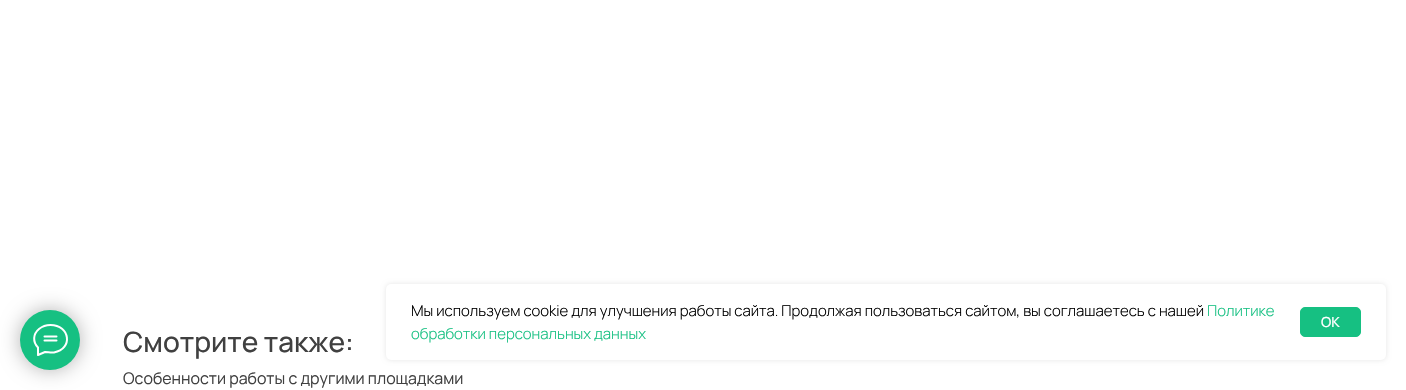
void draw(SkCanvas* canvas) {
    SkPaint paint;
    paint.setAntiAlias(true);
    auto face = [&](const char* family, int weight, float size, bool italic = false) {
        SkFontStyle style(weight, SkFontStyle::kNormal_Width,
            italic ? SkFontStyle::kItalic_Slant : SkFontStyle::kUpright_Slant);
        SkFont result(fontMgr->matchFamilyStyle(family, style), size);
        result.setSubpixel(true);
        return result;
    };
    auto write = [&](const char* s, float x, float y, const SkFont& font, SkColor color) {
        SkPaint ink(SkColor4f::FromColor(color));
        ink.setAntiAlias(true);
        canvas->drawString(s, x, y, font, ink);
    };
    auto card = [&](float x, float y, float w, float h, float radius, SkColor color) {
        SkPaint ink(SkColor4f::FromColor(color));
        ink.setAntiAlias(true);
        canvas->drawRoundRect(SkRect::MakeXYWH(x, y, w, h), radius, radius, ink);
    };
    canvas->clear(SK_ColorWHITE);
    paint.setColor(SkColorSetARGB(77, 0, 0, 0));
    paint.setMaskFilter(SkMaskFilter::MakeBlur(kNormal_SkBlurStyle, 10));
    canvas->drawRoundRect(SkRect::MakeXYWH(20, 310, 60, 60), 30, 30, paint);
    paint.setMaskFilter(nullptr);
    paint.setColor(SkColorSetRGB(22, 192, 130));
    canvas->drawCircle(50, 340, 30, paint);
    paint.setStyle(SkPaint::kStroke_Style);
    paint.setStrokeWidth(2);
    paint.setStrokeCap(SkPaint::kRound_Cap);
    paint.setStrokeJoin(SkPaint::kRound_Join);
    paint.setColor(SK_ColorWHITE);
    canvas->drawPath(SkPathBuilder().moveTo(44.5f, 336.5f).lineTo(56.5f, 336.5f).moveTo(44.5f, 340.5f).lineTo(56.5f, 340.5f).moveTo(38, 347.5f).cubicTo(32.5f, 342, 33, 334, 39, 329).cubicTo(42, 326.5f, 46.5f, 325, 50.5f, 325).cubicTo(70, 325, 73.5f, 349, 54, 352.5f).cubicTo(50, 353, 48.5f, 352, 45, 352).lineTo(38, 355).lineTo(38, 348).close().detach(), paint);
    paint.setStyle(SkPaint::kFill_Style);
    paint.setColor(SkColorSetARGB(26, 0, 0, 0));
    paint.setMaskFilter(SkMaskFilter::MakeBlur(kNormal_SkBlurStyle, 2.5f));
    canvas->drawRoundRect(SkRect::MakeXYWH(386, 284, 1000, 76), 5, 5, paint);
    paint.setMaskFilter(nullptr);
    card(386, 284, 1000, 76, 5, SK_ColorWHITE);
    auto kFont1 = face("Manrope", 300, 15);
    write("Мы используем cookie для улучшения работы сайта. Продолжая пользоваться сайтом, вы соглашаетесь с нашей", 411, 316, kFont1, SK_ColorBLACK);
    write("Политике", 1207, 316, kFont1, SkColorSetRGB(22, 192, 130));
    write("обработки персональных данных", 411, 339, kFont1, SkColorSetRGB(22, 192, 130));
    paint.setColor(SkColorSetRGB(22, 192, 130));
    canvas->drawRoundRect(SkRect::MakeXYWH(1300.5f, 307.5f, 60, 29), 4.5f, 4.5f, paint);
    paint.setStyle(SkPaint::kStroke_Style);
    paint.setStrokeWidth(1);
    paint.setStrokeCap(SkPaint::kButt_Cap);
    paint.setStrokeJoin(SkPaint::kMiter_Join);
    canvas->drawRoundRect(SkRect::MakeXYWH(1300.5f, 307.5f, 60, 29), 4.5f, 4.5f, paint);
    auto kFont2 = face("Manrope", 500, 14);
    write("ОК", 1321, 327, kFont2, SK_ColorWHITE);
    auto kFont3 = face("Manrope", 500, 28);
    write("Смотрите также:", 123, 352, kFont3, SkColorSetRGB(64, 64, 64));
    auto kFont4 = face("Manrope", 400, 16);
    write("Особенности работы с другими площадками", 123, 384, kFont4, SkColorSetRGB(64, 64, 64));
}
